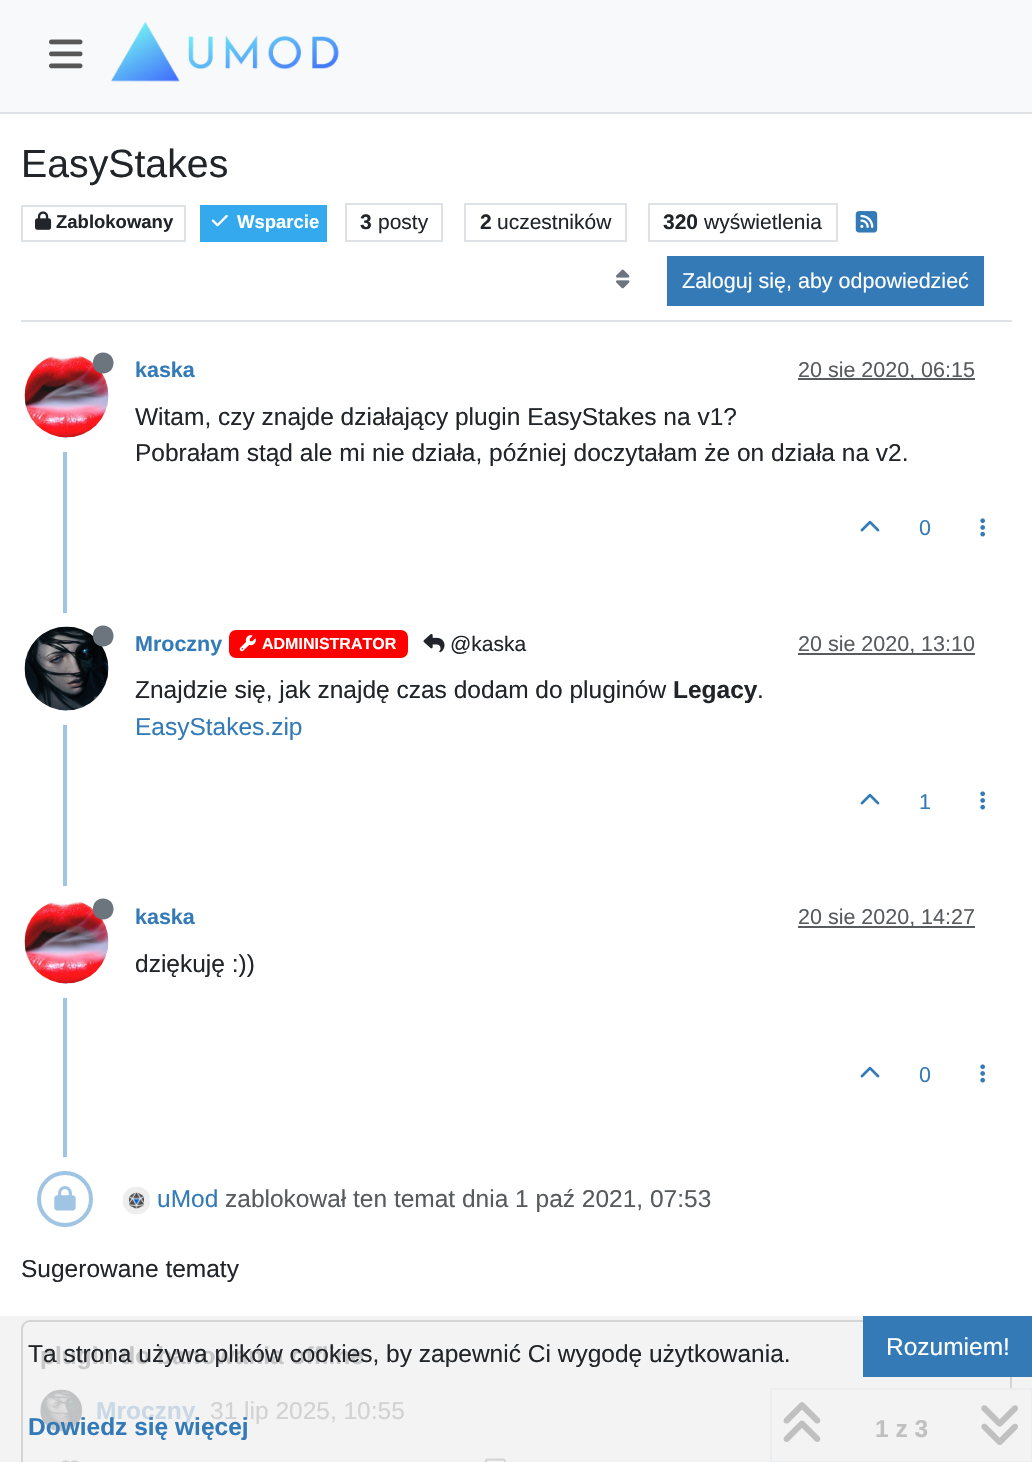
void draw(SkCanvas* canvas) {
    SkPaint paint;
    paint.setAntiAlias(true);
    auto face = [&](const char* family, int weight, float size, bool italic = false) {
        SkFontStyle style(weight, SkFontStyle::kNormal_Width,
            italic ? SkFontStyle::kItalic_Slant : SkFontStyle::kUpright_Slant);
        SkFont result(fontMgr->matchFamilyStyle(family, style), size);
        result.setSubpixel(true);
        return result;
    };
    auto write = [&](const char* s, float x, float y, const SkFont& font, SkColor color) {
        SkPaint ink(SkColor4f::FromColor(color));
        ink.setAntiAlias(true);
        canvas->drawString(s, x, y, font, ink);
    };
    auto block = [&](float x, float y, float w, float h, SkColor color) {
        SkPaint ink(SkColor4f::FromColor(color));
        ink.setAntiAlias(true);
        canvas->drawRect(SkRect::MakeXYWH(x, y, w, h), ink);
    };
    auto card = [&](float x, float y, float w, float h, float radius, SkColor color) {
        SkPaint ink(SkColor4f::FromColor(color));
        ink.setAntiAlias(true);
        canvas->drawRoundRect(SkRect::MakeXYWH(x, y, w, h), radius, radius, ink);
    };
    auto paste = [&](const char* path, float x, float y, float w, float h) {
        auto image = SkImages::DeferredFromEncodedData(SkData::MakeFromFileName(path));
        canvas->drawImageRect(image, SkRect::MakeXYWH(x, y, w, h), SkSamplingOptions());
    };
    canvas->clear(SK_ColorWHITE);
    block(0, 1316, 1032, 146, SkColorSetRGB(243, 243, 243));
    block(0, 0, 1032, 112, SkColorSetRGB(248, 249, 250));
    block(0, 112, 1032, 2, SkColorSetRGB(222, 226, 230));
    paste("pic1.png", 49, 39, 34, 30);
    paste("pic2.png", 111, 22, 228, 60);
    block(21, 320, 991, 2, SkColorSetRGB(222, 226, 230));
    auto kFont1 = face("Liberation Sans", 400, 39.25f);
    write("EasyStakes", 21, 177, kFont1, SkColorSetRGB(33, 37, 41));
    paint.setStyle(SkPaint::kStroke_Style);
    paint.setStrokeWidth(2);
    paint.setColor(SkColorSetRGB(222, 226, 230));
    canvas->drawRect(SkRect::MakeXYWH(22, 206, 163, 35), paint);
    paste("pic3.png", 35, 211, 17, 19);
    auto kFont2 = face("Liberation Sans", 700, 18.5f);
    write("Zablokowany", 56, 228, kFont2, SkColorSetRGB(33, 37, 41));
    block(200, 205, 127, 37, SkColorSetRGB(53, 169, 237));
    paste("pic4.png", 211, 214, 17, 13);
    write("Wsparcie", 237, 228, kFont2, SK_ColorWHITE);
    canvas->drawRect(SkRect::MakeXYWH(346, 204, 96, 37), paint);
    auto kFont3 = face("Liberation Sans", 700, 21);
    write("3", 360, 229, kFont3, SkColorSetRGB(33, 37, 41));
    auto kFont4 = face("Liberation Sans", 400, 21);
    write("posty", 378, 229, kFont4, SkColorSetRGB(33, 37, 41));
    canvas->drawRect(SkRect::MakeXYWH(465, 204, 161, 37), paint);
    write("2", 480, 229, kFont3, SkColorSetRGB(33, 37, 41));
    write("uczestników", 497, 229, kFont4, SkColorSetRGB(33, 37, 41));
    canvas->drawRect(SkRect::MakeXYWH(649, 204, 188, 37), paint);
    write("320", 663, 229, kFont3, SkColorSetRGB(33, 37, 41));
    write("wyświetlenia", 704, 229, kFont4, SkColorSetRGB(33, 37, 41));
    paste("pic5.png", 855, 211, 23, 22);
    paste("pic6.png", 616, 269, 14, 20);
    block(667, 256, 317, 50, SkColorSetRGB(51, 122, 183));
    auto kFont5 = face("Liberation Sans", 400, 21.5f);
    write("Zaloguj się, aby odpowiedzieć", 682, 288, kFont5, SK_ColorWHITE);
    block(63, 437, 4, 790, SkColorSetRGB(160, 196, 228));
    paint.setStrokeWidth(14);
    paint.setColor(SK_ColorWHITE);
    canvas->drawCircle(67, 396, 49, paint);
    paste("pic7.png", 24, 354, 85, 84);
    paint.setStyle(SkPaint::kFill_Style);
    paint.setColor(SkColorSetRGB(108, 117, 125));
    canvas->drawPath(SkPathBuilder().moveTo(103, 373.5f).cubicTo(117, 373.5f, 117, 352.5f, 103, 352.5f).cubicTo(89.5f, 352.5f, 89.5f, 373.5f, 103, 373.5f).close().detach(), paint);
    auto kFont6 = face("Liberation Sans", 700, 21.5f);
    write("kaska", 135, 377, kFont6, SkColorSetRGB(51, 122, 183));
    block(798, 378, 177, 2, SkColorSetRGB(89, 92, 95));
    write("20 sie 2020, 06:15", 798, 377, kFont5, SkColorSetRGB(88, 91, 94));
    auto kFont7 = face("Liberation Sans", 400, 24.5f);
    write("Witam, czy znajde działający plugin EasyStakes na v1?", 135, 425, kFont7, SkColorSetRGB(33, 37, 41));
    write("Pobrałam stąd ale mi nie działa, później doczytałam że on działa na v2.", 135, 461, kFont7, SkColorSetRGB(33, 37, 41));
    paste("pic8.png", 860, 520, 20, 12);
    write("0", 919, 535, kFont5, SkColorSetRGB(51, 122, 183));
    paste("pic9.png", 980, 518, 5, 19);
    paint.setStyle(SkPaint::kStroke_Style);
    paint.setColor(SK_ColorWHITE);
    canvas->drawCircle(67, 669, 49, paint);
    paste("pic10.png", 24, 626, 85, 85);
    paint.setStyle(SkPaint::kFill_Style);
    paint.setColor(SkColorSetRGB(108, 117, 125));
    canvas->drawPath(SkPathBuilder().moveTo(103, 646.5f).cubicTo(117, 646.5f, 117, 625.5f, 103, 625.5f).cubicTo(89.5f, 625.5f, 89.5f, 646.5f, 103, 646.5f).close().detach(), paint);
    write("Mroczny", 135, 651, kFont6, SkColorSetRGB(51, 122, 183));
    card(229, 630, 179, 28, 7, SkColorSetRGB(255, 0, 0));
    paste("pic11.png", 239, 635, 17, 17);
    auto kFont8 = face("Liberation Sans", 700, 16);
    write("ADMINISTRATOR", 262, 649, kFont8, SK_ColorWHITE);
    paste("pic12.png", 423, 634, 22, 19);
    write("@kaska", 450, 651, kFont4, SkColorSetRGB(33, 37, 41));
    block(798, 653, 177, 2, SkColorSetRGB(89, 92, 95));
    write("20 sie 2020, 13:10", 798, 651, kFont5, SkColorSetRGB(88, 91, 94));
    write("Znajdzie się, jak znajdę czas dodam do pluginów", 135, 698, kFont7, SkColorSetRGB(33, 37, 41));
    auto kFont9 = face("Liberation Sans", 700, 24.5f);
    write("Legacy", 673, 698, kFont9, SkColorSetRGB(33, 37, 41));
    write(".", 757, 698, kFont7, SkColorSetRGB(33, 37, 41));
    write("EasyStakes.zip", 135, 735, kFont7, SkColorSetRGB(51, 122, 183));
    paste("pic8.png", 860, 793, 20, 12);
    write("1", 919, 809, kFont5, SkColorSetRGB(51, 122, 183));
    paste("pic9.png", 980, 791, 5, 19);
    paint.setStyle(SkPaint::kStroke_Style);
    paint.setColor(SK_ColorWHITE);
    canvas->drawCircle(67, 942, 49, paint);
    paste("pic7.png", 24, 900, 85, 84);
    paint.setStyle(SkPaint::kFill_Style);
    paint.setColor(SkColorSetRGB(108, 117, 125));
    canvas->drawPath(SkPathBuilder().moveTo(103, 919.5f).cubicTo(117, 919.5f, 117, 898.5f, 103, 898.5f).cubicTo(89.5f, 898.5f, 89.5f, 919.5f, 103, 919.5f).close().detach(), paint);
    write("kaska", 135, 924, kFont6, SkColorSetRGB(51, 122, 183));
    block(798, 926, 177, 2, SkColorSetRGB(89, 92, 95));
    write("20 sie 2020, 14:27", 798, 924, kFont5, SkColorSetRGB(88, 91, 94));
    write("dziękuję :))", 135, 972, kFont7, SkColorSetRGB(33, 37, 41));
    paste("pic8.png", 860, 1066, 20, 12);
    write("0", 919, 1082, kFont5, SkColorSetRGB(51, 122, 183));
    paste("pic9.png", 980, 1064, 5, 19);
    paint.setStyle(SkPaint::kStroke_Style);
    paint.setColor(SK_ColorWHITE);
    canvas->drawCircle(65, 1199, 35, paint);
    paint.setStyle(SkPaint::kFill_Style);
    canvas->drawCircle(65, 1199, 26, paint);
    paint.setStyle(SkPaint::kStroke_Style);
    paint.setStrokeWidth(4);
    paint.setColor(SkColorSetRGB(160, 196, 228));
    canvas->drawCircle(65, 1199, 26, paint);
    paste("pic13.png", 54, 1186, 22, 25);
    paste("pic14.png", 123, 1187, 27, 27);
    write("uMod", 157, 1207, kFont7, SkColorSetRGB(51, 122, 183));
    write("zablokował ten temat dnia 1 paź 2021, 07:53", 225, 1207, kFont7, SkColorSetRGB(88, 91, 94));
    paint.setStrokeWidth(2);
    paint.setColor(SkColorSetRGB(212, 212, 212));
    canvas->drawRoundRect(SkRect::MakeXYWH(22, 1321, 989, 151), 8, 8, paint);
    block(1010, 1390, 2, 71, SkColorSetRGB(242, 242, 242));
    paint.setColor(SkColorSetRGB(236, 237, 238));
    canvas->drawRect(SkRect::MakeXYWH(771, 1389, 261, 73), paint);
    paste("pic15.png", 783, 1402, 38, 40);
    write("1 z 3", 875, 1437, kFont9, SkColorSetRGB(192, 192, 192));
    paste("pic16.png", 981, 1405, 37, 40);
    write("Sugerowane tematy", 21, 1277, kFont7, SkColorSetRGB(33, 37, 41));
    write("plugin do banowania offline", 40, 1364, kFont9, SkColorSetRGB(199, 199, 200));
    paste("pic17.png", 40, 1389, 43, 43);
    write("Mroczny", 96, 1419, kFont9, SkColorSetRGB(202, 216, 229));
    write("31 lip 2025, 10:55", 210, 1419, kFont7, SkColorSetRGB(210, 210, 211));
    paste("pic18.png", 61, 1460, 18, 2);
    paste("pic19.png", 484, 1458, 22, 4);
    write("Ta strona używa plików cookies, by zapewnić Ci wygodę użytkowania.", 28, 1362, kFont7, SkColorSetRGB(33, 37, 41));
    block(863, 1316, 169, 61, SkColorSetRGB(51, 122, 183));
    write("Rozumiem!", 886, 1355, kFont7, SK_ColorWHITE);
    write("Dowiedz się więcej", 28, 1435, kFont9, SkColorSetRGB(51, 122, 183));
}
